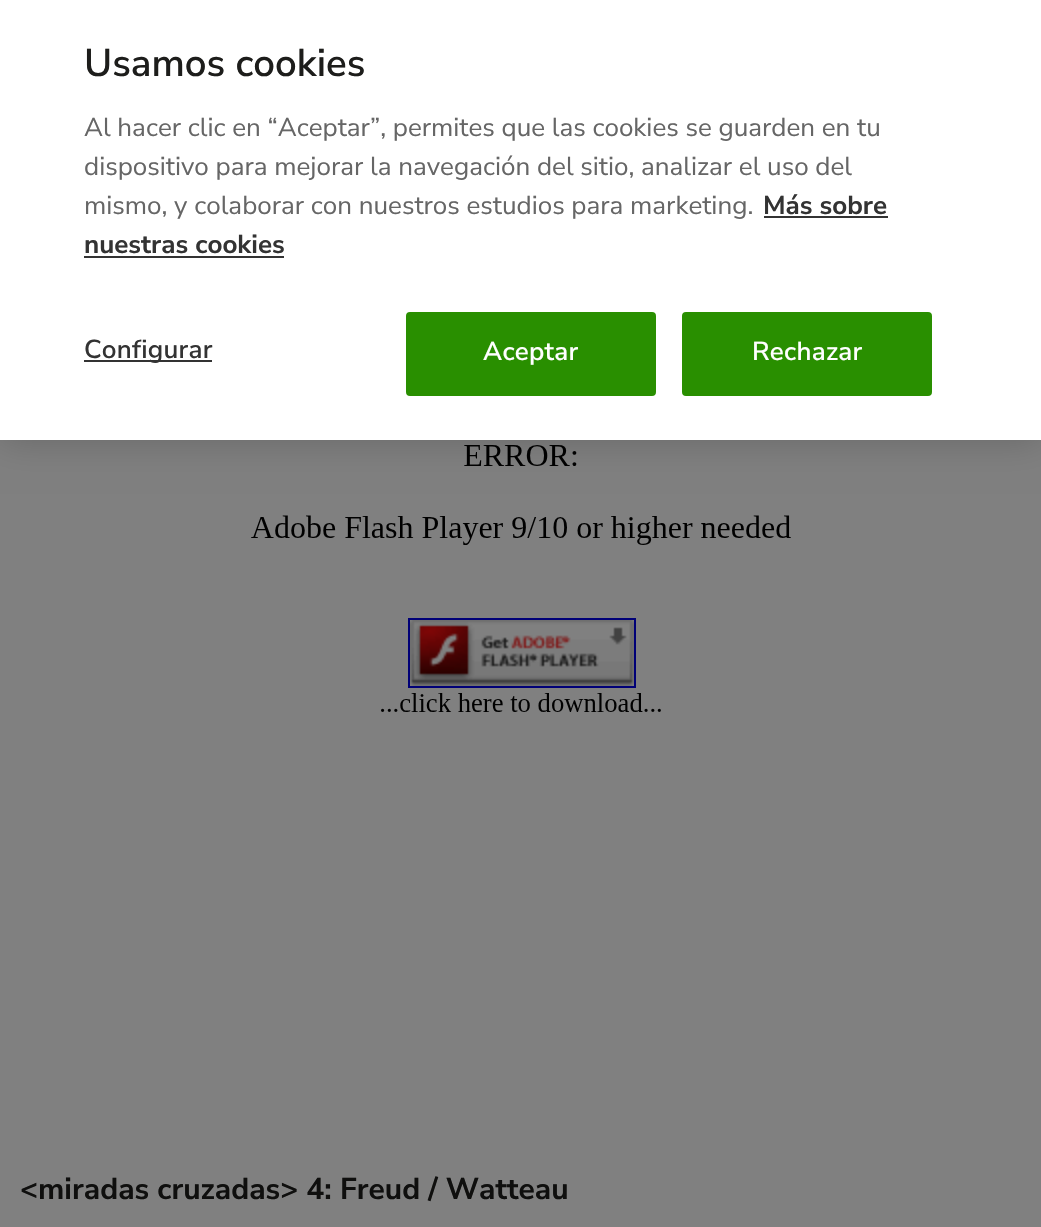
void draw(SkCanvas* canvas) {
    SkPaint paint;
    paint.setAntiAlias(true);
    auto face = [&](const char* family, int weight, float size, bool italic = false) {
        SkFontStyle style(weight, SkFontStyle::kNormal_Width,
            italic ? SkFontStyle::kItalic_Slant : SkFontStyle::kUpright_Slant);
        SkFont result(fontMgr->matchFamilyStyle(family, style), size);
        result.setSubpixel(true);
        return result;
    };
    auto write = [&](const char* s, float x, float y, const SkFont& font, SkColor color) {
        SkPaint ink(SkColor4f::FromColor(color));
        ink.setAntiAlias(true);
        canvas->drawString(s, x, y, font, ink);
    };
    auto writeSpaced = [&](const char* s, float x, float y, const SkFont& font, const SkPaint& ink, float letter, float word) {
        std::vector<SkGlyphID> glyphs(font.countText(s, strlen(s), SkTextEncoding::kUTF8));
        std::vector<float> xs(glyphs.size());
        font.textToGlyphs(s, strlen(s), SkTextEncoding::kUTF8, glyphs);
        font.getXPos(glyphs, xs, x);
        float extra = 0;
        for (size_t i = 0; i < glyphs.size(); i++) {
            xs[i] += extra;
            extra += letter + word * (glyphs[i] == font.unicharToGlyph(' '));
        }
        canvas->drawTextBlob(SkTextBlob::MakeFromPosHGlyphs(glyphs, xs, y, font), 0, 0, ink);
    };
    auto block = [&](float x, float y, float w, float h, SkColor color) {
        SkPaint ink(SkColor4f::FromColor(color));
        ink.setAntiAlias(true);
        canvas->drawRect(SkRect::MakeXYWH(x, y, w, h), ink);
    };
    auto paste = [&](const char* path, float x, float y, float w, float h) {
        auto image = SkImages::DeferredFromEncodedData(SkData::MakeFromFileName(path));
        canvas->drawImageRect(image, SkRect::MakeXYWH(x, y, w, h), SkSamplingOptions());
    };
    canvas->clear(SkColorSetRGB(128, 128, 128));
    paste("pic1.png", 251, 445, 540, 267);
    paint.setColor(SkColorSetARGB(51, 0, 0, 0));
    paint.setMaskFilter(SkMaskFilter::MakeBlur(kNormal_SkBlurStyle, 18));
    canvas->drawRect(SkRect::MakeXYWH(0, 0, 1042, 440), paint);
    paint.setMaskFilter(nullptr);
    block(0, 0, 1041, 440, SK_ColorWHITE);
    auto kFont1 = face("Nunito Sans", 600, 38.5f);
    write("Usamos cookies", 84, 76, kFont1, SkColorSetRGB(29, 29, 27));
    auto kFont2 = face("Nunito Sans", 400, 26);
    write("Al hacer clic en “Aceptar”, permites que las cookies se guarden en tu", 84, 136, kFont2, SkColorSetRGB(102, 102, 102));
    write("dispositivo para mejorar la navegación del sitio, analizar el uso del", 84, 175, kFont2, SkColorSetRGB(102, 102, 102));
    write("mismo, y colaborar con nuestros estudios para marketing.", 84, 214, kFont2, SkColorSetRGB(102, 102, 102));
    auto kFont3 = face("Nunito Sans", 700, 26);
    write("Más sobre", 763, 214, kFont3, SkColorSetRGB(51, 51, 51));
    block(764, 216, 124, 2, SkColorSetRGB(51, 51, 51));
    write("nuestras cookies", 84, 253, kFont3, SkColorSetRGB(51, 51, 51));
    block(84, 256, 200, 2, SkColorSetRGB(51, 51, 51));
    block(84, 360, 128, 2, SkColorSetRGB(51, 51, 51));
    auto kFont4 = face("Nunito Sans", 600, 26);
    paint.setColor(SkColorSetRGB(51, 51, 51));
    writeSpaced("Configurar", 84, 358, kFont4, paint, 0.25f, 0);
    paint.setColor(SkColorSetRGB(41, 143, 0));
    canvas->drawRoundRect(SkRect::MakeXYWH(407, 313, 248, 82), 3, 3, paint);
    paint.setStyle(SkPaint::kStroke_Style);
    paint.setStrokeWidth(2);
    canvas->drawRoundRect(SkRect::MakeXYWH(407, 313, 248, 82), 3, 3, paint);
    paint.setStyle(SkPaint::kFill_Style);
    paint.setColor(SK_ColorWHITE);
    writeSpaced("Aceptar", 483, 360, kFont4, paint, 0.25f, 0);
    paint.setColor(SkColorSetRGB(41, 143, 0));
    canvas->drawRoundRect(SkRect::MakeXYWH(683, 313, 248, 82), 3, 3, paint);
    paint.setStyle(SkPaint::kStroke_Style);
    canvas->drawRoundRect(SkRect::MakeXYWH(683, 313, 248, 82), 3, 3, paint);
    paint.setStyle(SkPaint::kFill_Style);
    paint.setColor(SK_ColorWHITE);
    writeSpaced("Rechazar", 752, 360, kFont4, paint, 0.25f, 0);
    auto kFont5 = face("Nunito Sans", 700, 30);
    write("<miradas cruzadas> 4: Freud / Watteau", 20, 1199, kFont5, SkColorSetRGB(15, 15, 14));
}
